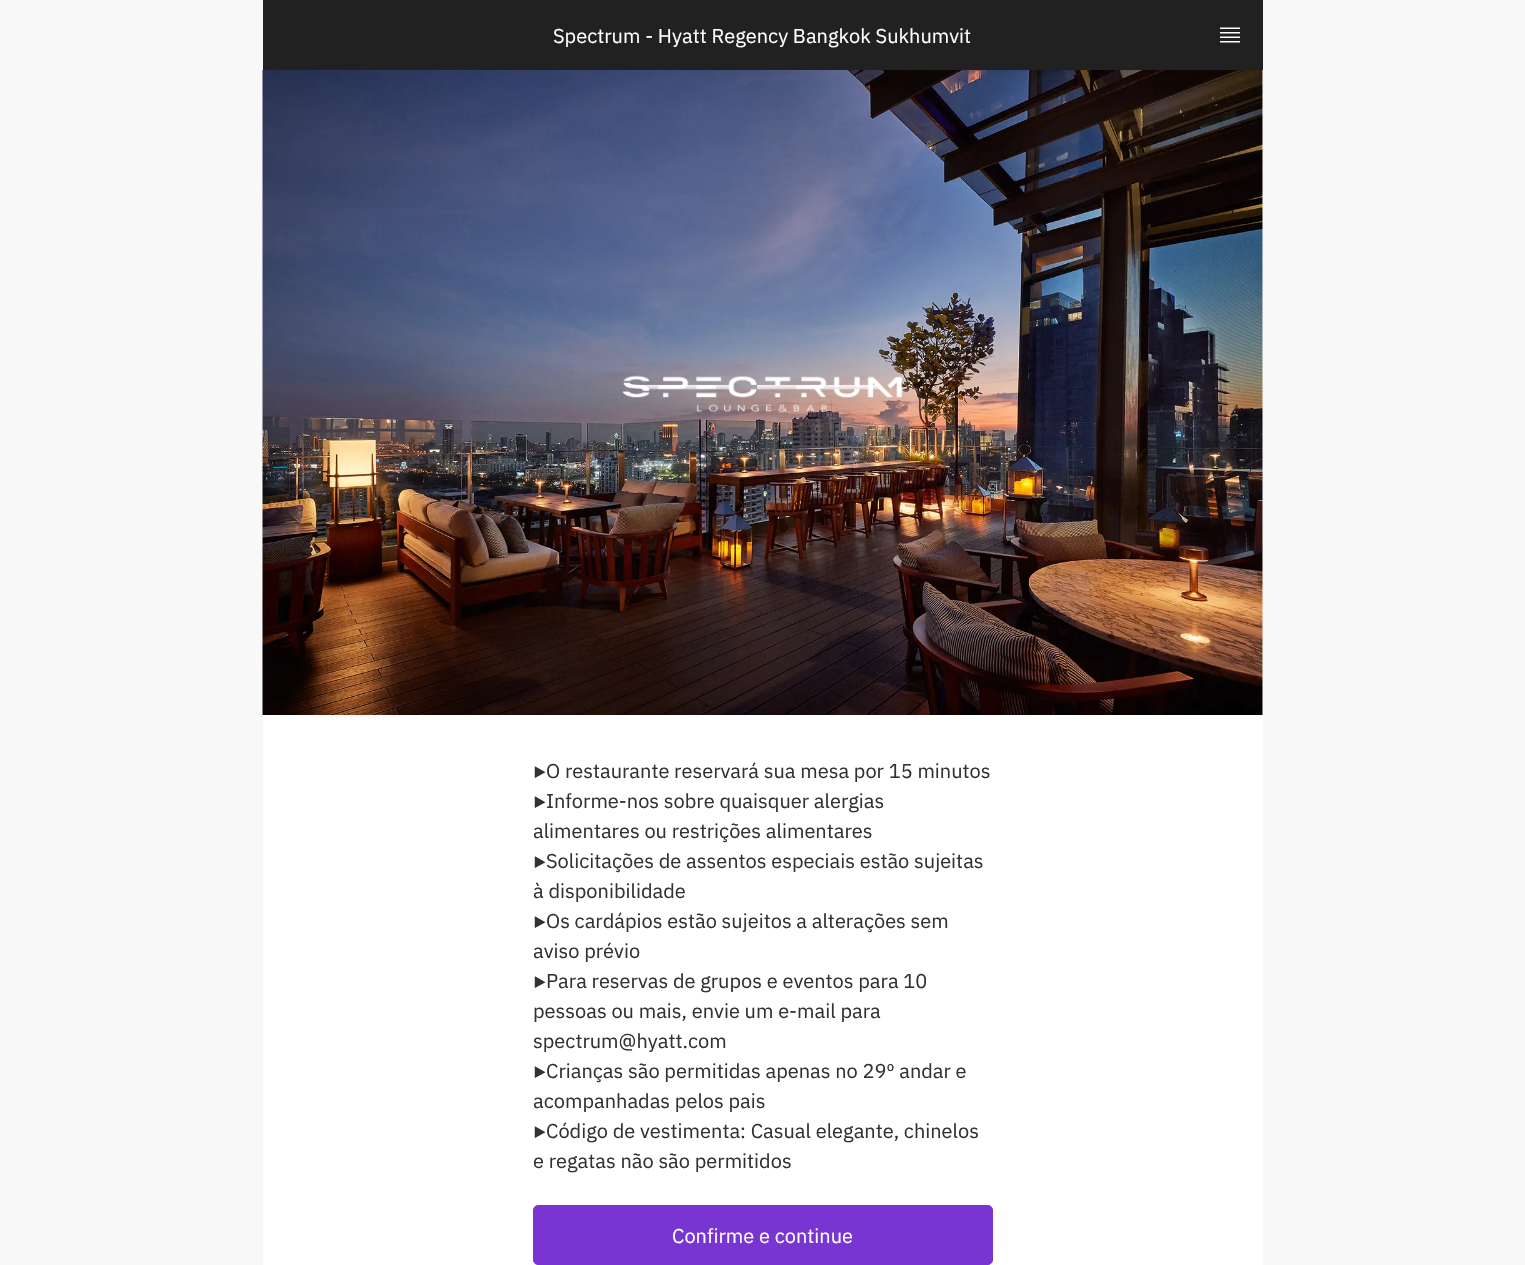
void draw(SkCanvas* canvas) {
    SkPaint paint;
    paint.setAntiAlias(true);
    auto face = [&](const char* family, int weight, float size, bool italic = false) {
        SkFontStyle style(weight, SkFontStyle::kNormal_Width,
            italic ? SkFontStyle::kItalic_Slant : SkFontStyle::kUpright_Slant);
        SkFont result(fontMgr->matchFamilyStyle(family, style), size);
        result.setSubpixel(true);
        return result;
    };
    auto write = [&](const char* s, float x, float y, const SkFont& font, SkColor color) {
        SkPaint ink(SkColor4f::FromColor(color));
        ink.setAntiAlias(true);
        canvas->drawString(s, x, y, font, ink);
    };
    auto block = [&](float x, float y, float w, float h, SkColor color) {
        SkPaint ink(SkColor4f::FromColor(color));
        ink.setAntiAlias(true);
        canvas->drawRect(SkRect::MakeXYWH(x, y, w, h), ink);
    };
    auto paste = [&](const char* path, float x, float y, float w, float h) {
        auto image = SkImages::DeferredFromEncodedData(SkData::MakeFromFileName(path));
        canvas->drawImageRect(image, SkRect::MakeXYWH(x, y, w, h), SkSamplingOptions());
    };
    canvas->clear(SkColorSetRGB(248, 248, 248));
    block(263, 70, 1000, 1195, SK_ColorWHITE);
    block(263, 0, 1000, 70, SkColorSetRGB(33, 33, 33));
    auto kFont1 = face("IBM Plex Sans", 400, 20);
    write("Spectrum - Hyatt Regency Bangkok Sukhumvit", 553, 43, kFont1, SK_ColorWHITE);
    paste("pic1.png", 1220, 27, 20, 16);
    paste("pic2.png", 262, 70, 1001, 645);
    paste("pic3.png", 622, 375, 281, 38);
    auto kFont2 = face("Sarabun", 400, 20);
    write("▶", 533, 778, kFont2, SkColorSetRGB(50, 50, 50));
    write("O restaurante reservará sua mesa por 15 minutos", 546, 778, kFont1, SkColorSetRGB(50, 50, 50));
    write("▶", 533, 808, kFont2, SkColorSetRGB(50, 50, 50));
    write("Informe-nos sobre quaisquer alergias", 546, 808, kFont1, SkColorSetRGB(50, 50, 50));
    write("alimentares ou restrições alimentares", 533, 838, kFont1, SkColorSetRGB(50, 50, 50));
    write("▶", 533, 868, kFont2, SkColorSetRGB(50, 50, 50));
    write("Solicitações de assentos especiais estão sujeitas", 546, 868, kFont1, SkColorSetRGB(50, 50, 50));
    write("à disponibilidade", 533, 898, kFont1, SkColorSetRGB(50, 50, 50));
    write("▶", 533, 928, kFont2, SkColorSetRGB(50, 50, 50));
    write("Os cardápios estão sujeitos a alterações sem", 546, 928, kFont1, SkColorSetRGB(50, 50, 50));
    write("aviso prévio", 533, 958, kFont1, SkColorSetRGB(50, 50, 50));
    write("▶", 533, 988, kFont2, SkColorSetRGB(50, 50, 50));
    write("Para reservas de grupos e eventos para 10", 546, 988, kFont1, SkColorSetRGB(50, 50, 50));
    write("pessoas ou mais, envie um e-mail para", 533, 1018, kFont1, SkColorSetRGB(50, 50, 50));
    write("spectrum@hyatt.com", 533, 1048, kFont1, SkColorSetRGB(50, 50, 50));
    write("▶", 533, 1078, kFont2, SkColorSetRGB(50, 50, 50));
    write("Crianças são permitidas apenas no 29º andar e", 546, 1078, kFont1, SkColorSetRGB(50, 50, 50));
    write("acompanhadas pelos pais", 533, 1108, kFont1, SkColorSetRGB(50, 50, 50));
    write("▶", 533, 1138, kFont2, SkColorSetRGB(50, 50, 50));
    write("Código de vestimenta: Casual elegante, chinelos", 546, 1138, kFont1, SkColorSetRGB(50, 50, 50));
    write("e regatas não são permitidos", 533, 1168, kFont1, SkColorSetRGB(50, 50, 50));
    paint.setColor(SkColorSetRGB(121, 53, 210));
    canvas->drawRoundRect(SkRect::MakeXYWH(533.5f, 1205.5f, 459, 59), 4.5f, 4.5f, paint);
    paint.setStyle(SkPaint::kStroke_Style);
    paint.setStrokeWidth(1);
    canvas->drawRoundRect(SkRect::MakeXYWH(533.5f, 1205.5f, 459, 59), 4.5f, 4.5f, paint);
    write("Confirme e continue", 672, 1243, kFont1, SK_ColorWHITE);
}
